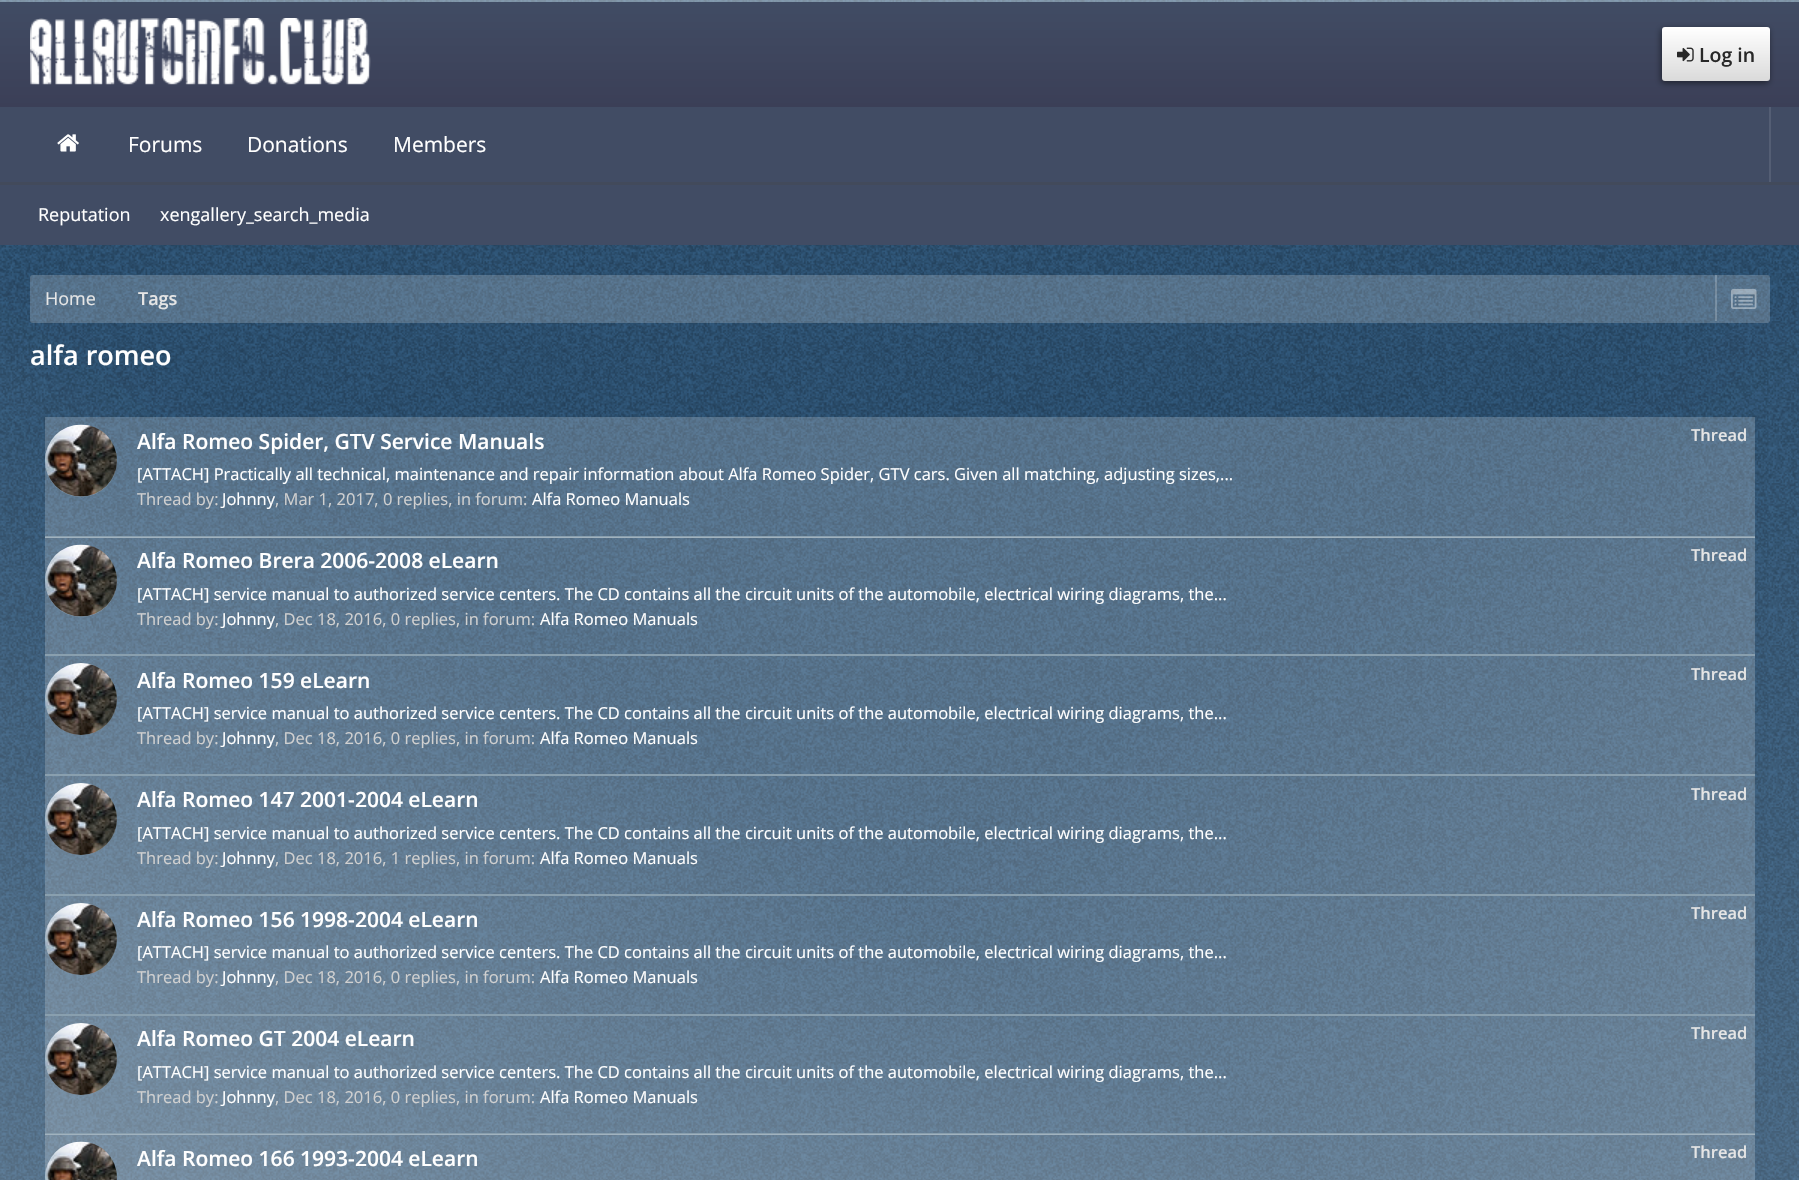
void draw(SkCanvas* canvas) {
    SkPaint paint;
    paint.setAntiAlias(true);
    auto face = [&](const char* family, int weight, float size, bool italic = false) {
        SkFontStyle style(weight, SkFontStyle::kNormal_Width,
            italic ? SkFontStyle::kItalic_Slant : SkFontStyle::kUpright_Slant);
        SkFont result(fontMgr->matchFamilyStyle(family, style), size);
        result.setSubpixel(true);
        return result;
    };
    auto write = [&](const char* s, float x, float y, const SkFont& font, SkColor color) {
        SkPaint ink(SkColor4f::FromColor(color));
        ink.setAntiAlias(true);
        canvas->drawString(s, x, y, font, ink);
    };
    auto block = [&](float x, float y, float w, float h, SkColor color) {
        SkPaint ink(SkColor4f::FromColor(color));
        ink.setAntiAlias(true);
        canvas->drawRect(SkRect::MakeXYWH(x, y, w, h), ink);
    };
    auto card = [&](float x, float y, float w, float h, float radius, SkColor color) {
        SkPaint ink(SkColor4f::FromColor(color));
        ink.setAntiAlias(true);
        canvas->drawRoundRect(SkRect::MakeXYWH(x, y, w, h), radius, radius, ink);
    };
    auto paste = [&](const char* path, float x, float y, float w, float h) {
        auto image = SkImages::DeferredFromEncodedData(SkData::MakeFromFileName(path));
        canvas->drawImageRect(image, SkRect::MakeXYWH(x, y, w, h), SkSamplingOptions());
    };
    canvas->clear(SK_ColorWHITE);
    paste("pic1.png", 0, 0, 1799, 1180);
    block(0, 0, 1799, 2, SkColorSetARGB(102, 255, 255, 255));
    block(0, 107, 1799, 138, SkColorSetRGB(65, 76, 100));
    {
        const SkColor colors[] = {SkColorSetRGB(65, 76, 100), SkColorSetRGB(59, 63, 87)};
        const float stops[] = {0, 1};
        const SkPoint ends[] = {{900, 1.5f}, {900, 107}};
        paint.setShader(SkGradientShader::MakeLinear(ends, colors, stops, 2, SkTileMode::kClamp));
        paint.setAlpha(255);
    }
    canvas->drawRect(SkRect::MakeXYWH(0, 2, 1799, 105), paint);
    paste("pic2.png", 30, 18, 341, 67);
    paint.setShader(nullptr);
    paint.setColor(SkColorSetARGB(128, 0, 0, 0));
    paint.setMaskFilter(SkMaskFilter::MakeBlur(kNormal_SkBlurStyle, 3));
    canvas->drawRoundRect(SkRect::MakeXYWH(1661, 29, 108, 54), 3, 3, paint);
    paint.setMaskFilter(nullptr);
    {
        const SkColor colors[] = {SK_ColorWHITE, SkColorSetRGB(218, 218, 218)};
        const float stops[] = {0, 1};
        const SkPoint ends[] = {{1716, 27}, {1716, 81}};
        paint.setShader(SkGradientShader::MakeLinear(ends, colors, stops, 2, SkTileMode::kClamp));
        paint.setAlpha(255);
    }
    canvas->drawRoundRect(SkRect::MakeXYWH(1662, 27, 108, 54), 3, 3, paint);
    paste("pic3.png", 1677, 47, 17, 15);
    auto kFont1 = face("Open Sans", 600, 19.5f);
    write("Log in", 1699, 62, kFont1, SkColorSetRGB(40, 40, 40));
    paste("pic4.png", 57, 134, 22, 18);
    auto kFont2 = face("Open Sans", 400, 21);
    write("Forums", 128, 152, kFont2, SK_ColorWHITE);
    write("Donations", 247, 152, kFont2, SK_ColorWHITE);
    write("Members", 393, 152, kFont2, SK_ColorWHITE);
    block(0, 182, 1799, 3, SkColorSetRGB(66, 74, 91));
    auto kFont3 = face("Open Sans", 400, 18);
    write("Reputation", 38, 221, kFont3, SK_ColorWHITE);
    write("xengallery_search_media", 160, 221, kFont3, SK_ColorWHITE);
    block(1769, 107, 2, 75, SkColorSetRGB(84, 94, 116));
    card(30, 275, 1740, 48, 3, SkColorSetARGB(51, 255, 255, 255));
    write("Home", 45, 305, kFont3, SkColorSetRGB(229, 229, 229));
    auto kFont4 = face("Open Sans", 600, 18);
    write("Tags", 138, 305, kFont4, SkColorSetRGB(229, 229, 229));
    block(1715, 275, 2, 46, SkColorSetARGB(51, 255, 255, 255));
    paste("pic5.png", 1731, 288, 26, 21);
    auto kFont5 = face("Open Sans", 600, 27);
    write("alfa romeo", 30, 365, kFont5, SK_ColorWHITE);
    block(45, 417, 1710, 119, SkColorSetARGB(51, 255, 255, 255));
    block(45, 536, 1710, 2, SkColorSetRGB(137, 159, 174));
    paint.setShader(nullptr);
    paint.setColor(SkColorSetARGB(51, 255, 255, 255));
    canvas->drawCircle(81, 461, 36, paint);
    paste("pic6.png", 45, 424, 72, 73);
    auto kFont6 = face("Open Sans", 600, 21);
    write("Alfa Romeo Spider, GTV Service Manuals", 137, 449, kFont6, SK_ColorWHITE);
    auto kFont7 = face("Open Sans", 600, 16.5f);
    write("Thread", 1691, 441, kFont7, SkColorSetRGB(229, 229, 229));
    auto kFont8 = face("Open Sans", 400, 16.5f);
    write("[ATTACH] Practically all technical, maintenance and repair information about Alfa Romeo Spider, GTV cars. Given all matching, adjusting sizes,...", 137, 480, kFont8, SK_ColorWHITE);
    write("Thread by:", 137, 505, kFont8, SkColorSetRGB(208, 208, 208));
    write("Johnny", 222, 505, kFont8, SK_ColorWHITE);
    write(", Mar 1, 2017, 0 replies, in forum:", 275, 505, kFont8, SkColorSetRGB(208, 208, 208));
    write("Alfa Romeo Manuals", 532, 505, kFont8, SK_ColorWHITE);
    block(45, 537, 1710, 117, SkColorSetARGB(51, 255, 255, 255));
    block(45, 654, 1710, 2, SkColorSetRGB(137, 159, 174));
    canvas->drawCircle(81, 581, 36, paint);
    paste("pic7.png", 45, 544, 72, 73);
    write("Alfa Romeo Brera 2006-2008 eLearn", 137, 568, kFont6, SK_ColorWHITE);
    write("Thread", 1691, 561, kFont7, SkColorSetRGB(229, 229, 229));
    write("[ATTACH] service manual to authorized service centers. The CD contains all the circuit units of the automobile, electrical wiring diagrams, the...", 137, 600, kFont8, SK_ColorWHITE);
    write("Thread by:", 137, 625, kFont8, SkColorSetRGB(208, 208, 208));
    write("Johnny", 222, 625, kFont8, SK_ColorWHITE);
    write(", Dec 18, 2016, 0 replies, in forum:", 275, 625, kFont8, SkColorSetRGB(208, 208, 208));
    write("Alfa Romeo Manuals", 540, 625, kFont8, SK_ColorWHITE);
    block(45, 656, 1710, 118, SkColorSetARGB(51, 255, 255, 255));
    block(45, 774, 1710, 2, SkColorSetRGB(137, 159, 174));
    canvas->drawCircle(81, 699, 36, paint);
    paste("pic8.png", 45, 663, 72, 72);
    write("Alfa Romeo 159 eLearn", 137, 688, kFont6, SK_ColorWHITE);
    write("Thread", 1691, 680, kFont7, SkColorSetRGB(229, 229, 229));
    write("[ATTACH] service manual to authorized service centers. The CD contains all the circuit units of the automobile, electrical wiring diagrams, the...", 137, 719, kFont8, SK_ColorWHITE);
    write("Thread by:", 137, 744, kFont8, SkColorSetRGB(208, 208, 208));
    write("Johnny", 222, 744, kFont8, SK_ColorWHITE);
    write(", Dec 18, 2016, 0 replies, in forum:", 275, 744, kFont8, SkColorSetRGB(208, 208, 208));
    write("Alfa Romeo Manuals", 540, 744, kFont8, SK_ColorWHITE);
    block(45, 776, 1710, 118, SkColorSetARGB(51, 255, 255, 255));
    block(45, 894, 1710, 2, SkColorSetRGB(137, 159, 174));
    canvas->drawCircle(81, 819, 36, paint);
    paste("pic9.png", 45, 783, 72, 72);
    write("Alfa Romeo 147 2001-2004 eLearn", 137, 807, kFont6, SK_ColorWHITE);
    write("Thread", 1691, 800, kFont7, SkColorSetRGB(229, 229, 229));
    write("[ATTACH] service manual to authorized service centers. The CD contains all the circuit units of the automobile, electrical wiring diagrams, the...", 137, 839, kFont8, SK_ColorWHITE);
    write("Thread by:", 137, 864, kFont8, SkColorSetRGB(208, 208, 208));
    write("Johnny", 222, 864, kFont8, SK_ColorWHITE);
    write(", Dec 18, 2016, 1 replies, in forum:", 275, 864, kFont8, SkColorSetRGB(208, 208, 208));
    write("Alfa Romeo Manuals", 540, 864, kFont8, SK_ColorWHITE);
    block(45, 896, 1710, 118, SkColorSetARGB(51, 255, 255, 255));
    block(45, 1014, 1710, 2, SkColorSetRGB(137, 159, 174));
    canvas->drawCircle(81, 939, 36, paint);
    paste("pic10.png", 45, 903, 72, 72);
    write("Alfa Romeo 156 1998-2004 eLearn", 137, 927, kFont6, SK_ColorWHITE);
    write("Thread", 1691, 919, kFont7, SkColorSetRGB(229, 229, 229));
    write("[ATTACH] service manual to authorized service centers. The CD contains all the circuit units of the automobile, electrical wiring diagrams, the...", 137, 958, kFont8, SK_ColorWHITE);
    write("Thread by:", 137, 983, kFont8, SkColorSetRGB(208, 208, 208));
    write("Johnny", 222, 983, kFont8, SK_ColorWHITE);
    write(", Dec 18, 2016, 0 replies, in forum:", 275, 983, kFont8, SkColorSetRGB(208, 208, 208));
    write("Alfa Romeo Manuals", 540, 983, kFont8, SK_ColorWHITE);
    block(45, 1016, 1710, 117, SkColorSetARGB(51, 255, 255, 255));
    block(45, 1133, 1710, 2, SkColorSetRGB(137, 159, 174));
    canvas->drawCircle(81, 1059, 36, paint);
    paste("pic11.png", 45, 1023, 72, 72);
    write("Alfa Romeo GT 2004 eLearn", 137, 1046, kFont6, SK_ColorWHITE);
    write("Thread", 1691, 1039, kFont7, SkColorSetRGB(229, 229, 229));
    write("[ATTACH] service manual to authorized service centers. The CD contains all the circuit units of the automobile, electrical wiring diagrams, the...", 137, 1078, kFont8, SK_ColorWHITE);
    write("Thread by:", 137, 1103, kFont8, SkColorSetRGB(208, 208, 208));
    write("Johnny", 222, 1103, kFont8, SK_ColorWHITE);
    write(", Dec 18, 2016, 0 replies, in forum:", 275, 1103, kFont8, SkColorSetRGB(208, 208, 208));
    write("Alfa Romeo Manuals", 540, 1103, kFont8, SK_ColorWHITE);
    block(45, 1134, 1710, 46, SkColorSetARGB(51, 255, 255, 255));
    paste("pic12.png", 45, 1141, 72, 39);
    write("Alfa Romeo 166 1993-2004 eLearn", 137, 1166, kFont6, SK_ColorWHITE);
    write("Thread", 1691, 1158, kFont7, SkColorSetRGB(229, 229, 229));
}
